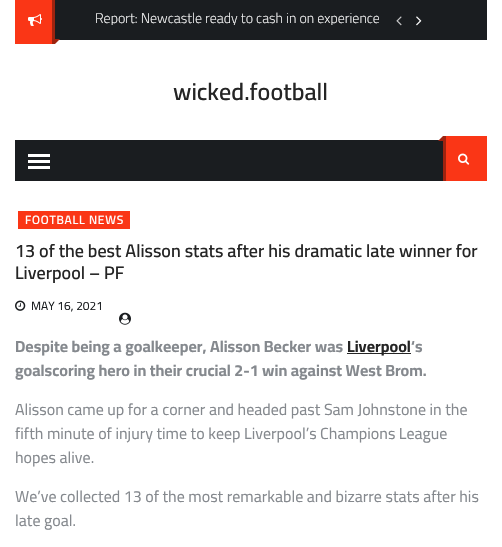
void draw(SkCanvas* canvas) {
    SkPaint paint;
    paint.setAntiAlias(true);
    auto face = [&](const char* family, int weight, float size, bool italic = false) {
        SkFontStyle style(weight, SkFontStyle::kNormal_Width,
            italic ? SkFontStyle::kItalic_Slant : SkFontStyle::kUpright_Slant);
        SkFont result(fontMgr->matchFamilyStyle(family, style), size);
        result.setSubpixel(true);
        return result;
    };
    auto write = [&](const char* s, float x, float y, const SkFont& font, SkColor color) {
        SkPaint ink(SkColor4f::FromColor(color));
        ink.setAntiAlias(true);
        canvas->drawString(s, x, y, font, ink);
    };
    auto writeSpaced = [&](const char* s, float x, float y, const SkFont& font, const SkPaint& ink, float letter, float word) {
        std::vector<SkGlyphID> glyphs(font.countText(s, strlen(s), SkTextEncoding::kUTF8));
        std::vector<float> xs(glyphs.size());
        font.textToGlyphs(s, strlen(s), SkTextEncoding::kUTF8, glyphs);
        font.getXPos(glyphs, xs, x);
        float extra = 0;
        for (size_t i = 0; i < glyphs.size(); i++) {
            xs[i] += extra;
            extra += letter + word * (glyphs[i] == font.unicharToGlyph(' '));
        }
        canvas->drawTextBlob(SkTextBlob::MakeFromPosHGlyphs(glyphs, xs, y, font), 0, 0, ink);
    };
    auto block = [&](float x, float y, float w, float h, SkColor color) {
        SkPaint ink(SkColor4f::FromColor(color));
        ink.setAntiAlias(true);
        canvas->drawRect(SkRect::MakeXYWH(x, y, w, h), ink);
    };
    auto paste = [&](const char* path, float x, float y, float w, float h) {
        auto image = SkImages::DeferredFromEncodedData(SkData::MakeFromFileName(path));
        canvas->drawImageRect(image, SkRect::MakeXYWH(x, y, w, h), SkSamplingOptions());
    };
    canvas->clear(SK_ColorWHITE);
    block(55, 0, 432, 40, SkColorSetRGB(26, 29, 32));
    block(15, 0, 37, 44, SkColorSetRGB(250, 54, 22));
    block(52, 0, 3, 44, SkColorSetRGB(158, 35, 15));
    paste("pic1.png", 28, 14, 14, 12);
    paint.setColor(SkColorSetRGB(158, 35, 15));
    canvas->drawPath(SkPathBuilder().moveTo(55, 39).lineTo(60, 39).lineTo(55, 44).close().detach(), paint);
    canvas->save();
    canvas->clipRect(SkRect::MakeXYWH(95, 11, 284, 14));
    auto kFont1 = face("Cairo", 300, 14);
    write("Report: Newcastle ready to cash in on experience", 95, 23, kFont1, SK_ColorWHITE);
    canvas->restore();
    paste("pic2.png", 396, 16, 6, 10);
    paste("pic3.png", 416, 16, 6, 10);
    auto kFont2 = face("Cairo", 600, 24);
    write("wicked.football", 173, 100, kFont2, SkColorSetRGB(37, 37, 37));
    block(15, 140, 428, 41, SkColorSetRGB(26, 29, 32));
    block(28, 154, 22, 3, SK_ColorWHITE);
    block(28, 160, 22, 3, SK_ColorWHITE);
    block(28, 166, 22, 3, SK_ColorWHITE);
    block(446, 136, 41, 45, SkColorSetRGB(250, 54, 22));
    block(443, 136, 3, 45, SkColorSetRGB(158, 35, 15));
    canvas->drawPath(SkPathBuilder().moveTo(443, 141).lineTo(438, 141).lineTo(443, 136).close().detach(), paint);
    paste("pic4.png", 458, 153, 12, 12);
    block(18, 211, 112, 18, SkColorSetRGB(250, 54, 22));
    auto kFont3 = face("Cairo", 600, 12);
    paint.setColor(SK_ColorWHITE);
    writeSpaced("FOOTBALL NEWS", 25, 224, kFont3, paint, 0.75f, 0);
    auto kFont4 = face("Cairo", 600, 18);
    write("13 of the best Alisson stats after his dramatic late winner for", 15, 257, kFont4, SkColorSetRGB(37, 37, 37));
    write("Liverpool – PF", 15, 279, kFont4, SkColorSetRGB(37, 37, 37));
    paste("pic5.png", 15, 300, 11, 11);
    auto kFont5 = face("Cairo", 400, 12);
    write("MAY 16, 2021", 31, 310, kFont5, SkColorSetRGB(26, 29, 32));
    paste("pic6.png", 119, 312, 12, 13);
    auto kFont6 = face("Cairo", 700, 16);
    write("Despite being a goalkeeper, Alisson Becker was", 15, 352, kFont6, SkColorSetRGB(133, 137, 142));
    block(347, 353, 64, 1, SkColorSetRGB(37, 37, 37));
    write("Liverpool", 347, 352, kFont6, SkColorSetRGB(37, 37, 37));
    write("‘s", 411, 352, kFont6, SkColorSetRGB(133, 137, 142));
    write("goalscoring hero in their crucial 2-1 win against West Brom.", 15, 376, kFont6, SkColorSetRGB(133, 137, 142));
    auto kFont7 = face("Cairo", 400, 16);
    write("Alisson came up for a corner and headed past Sam Johnstone in the", 15, 415, kFont7, SkColorSetRGB(133, 137, 142));
    write("fifth minute of injury time to keep Liverpool’s Champions League", 15, 439, kFont7, SkColorSetRGB(133, 137, 142));
    write("hopes alive.", 15, 463, kFont7, SkColorSetRGB(133, 137, 142));
    write("We’ve collected 13 of the most remarkable and bizarre stats after his", 15, 502, kFont7, SkColorSetRGB(133, 137, 142));
    write("late goal.", 15, 526, kFont7, SkColorSetRGB(133, 137, 142));
}
